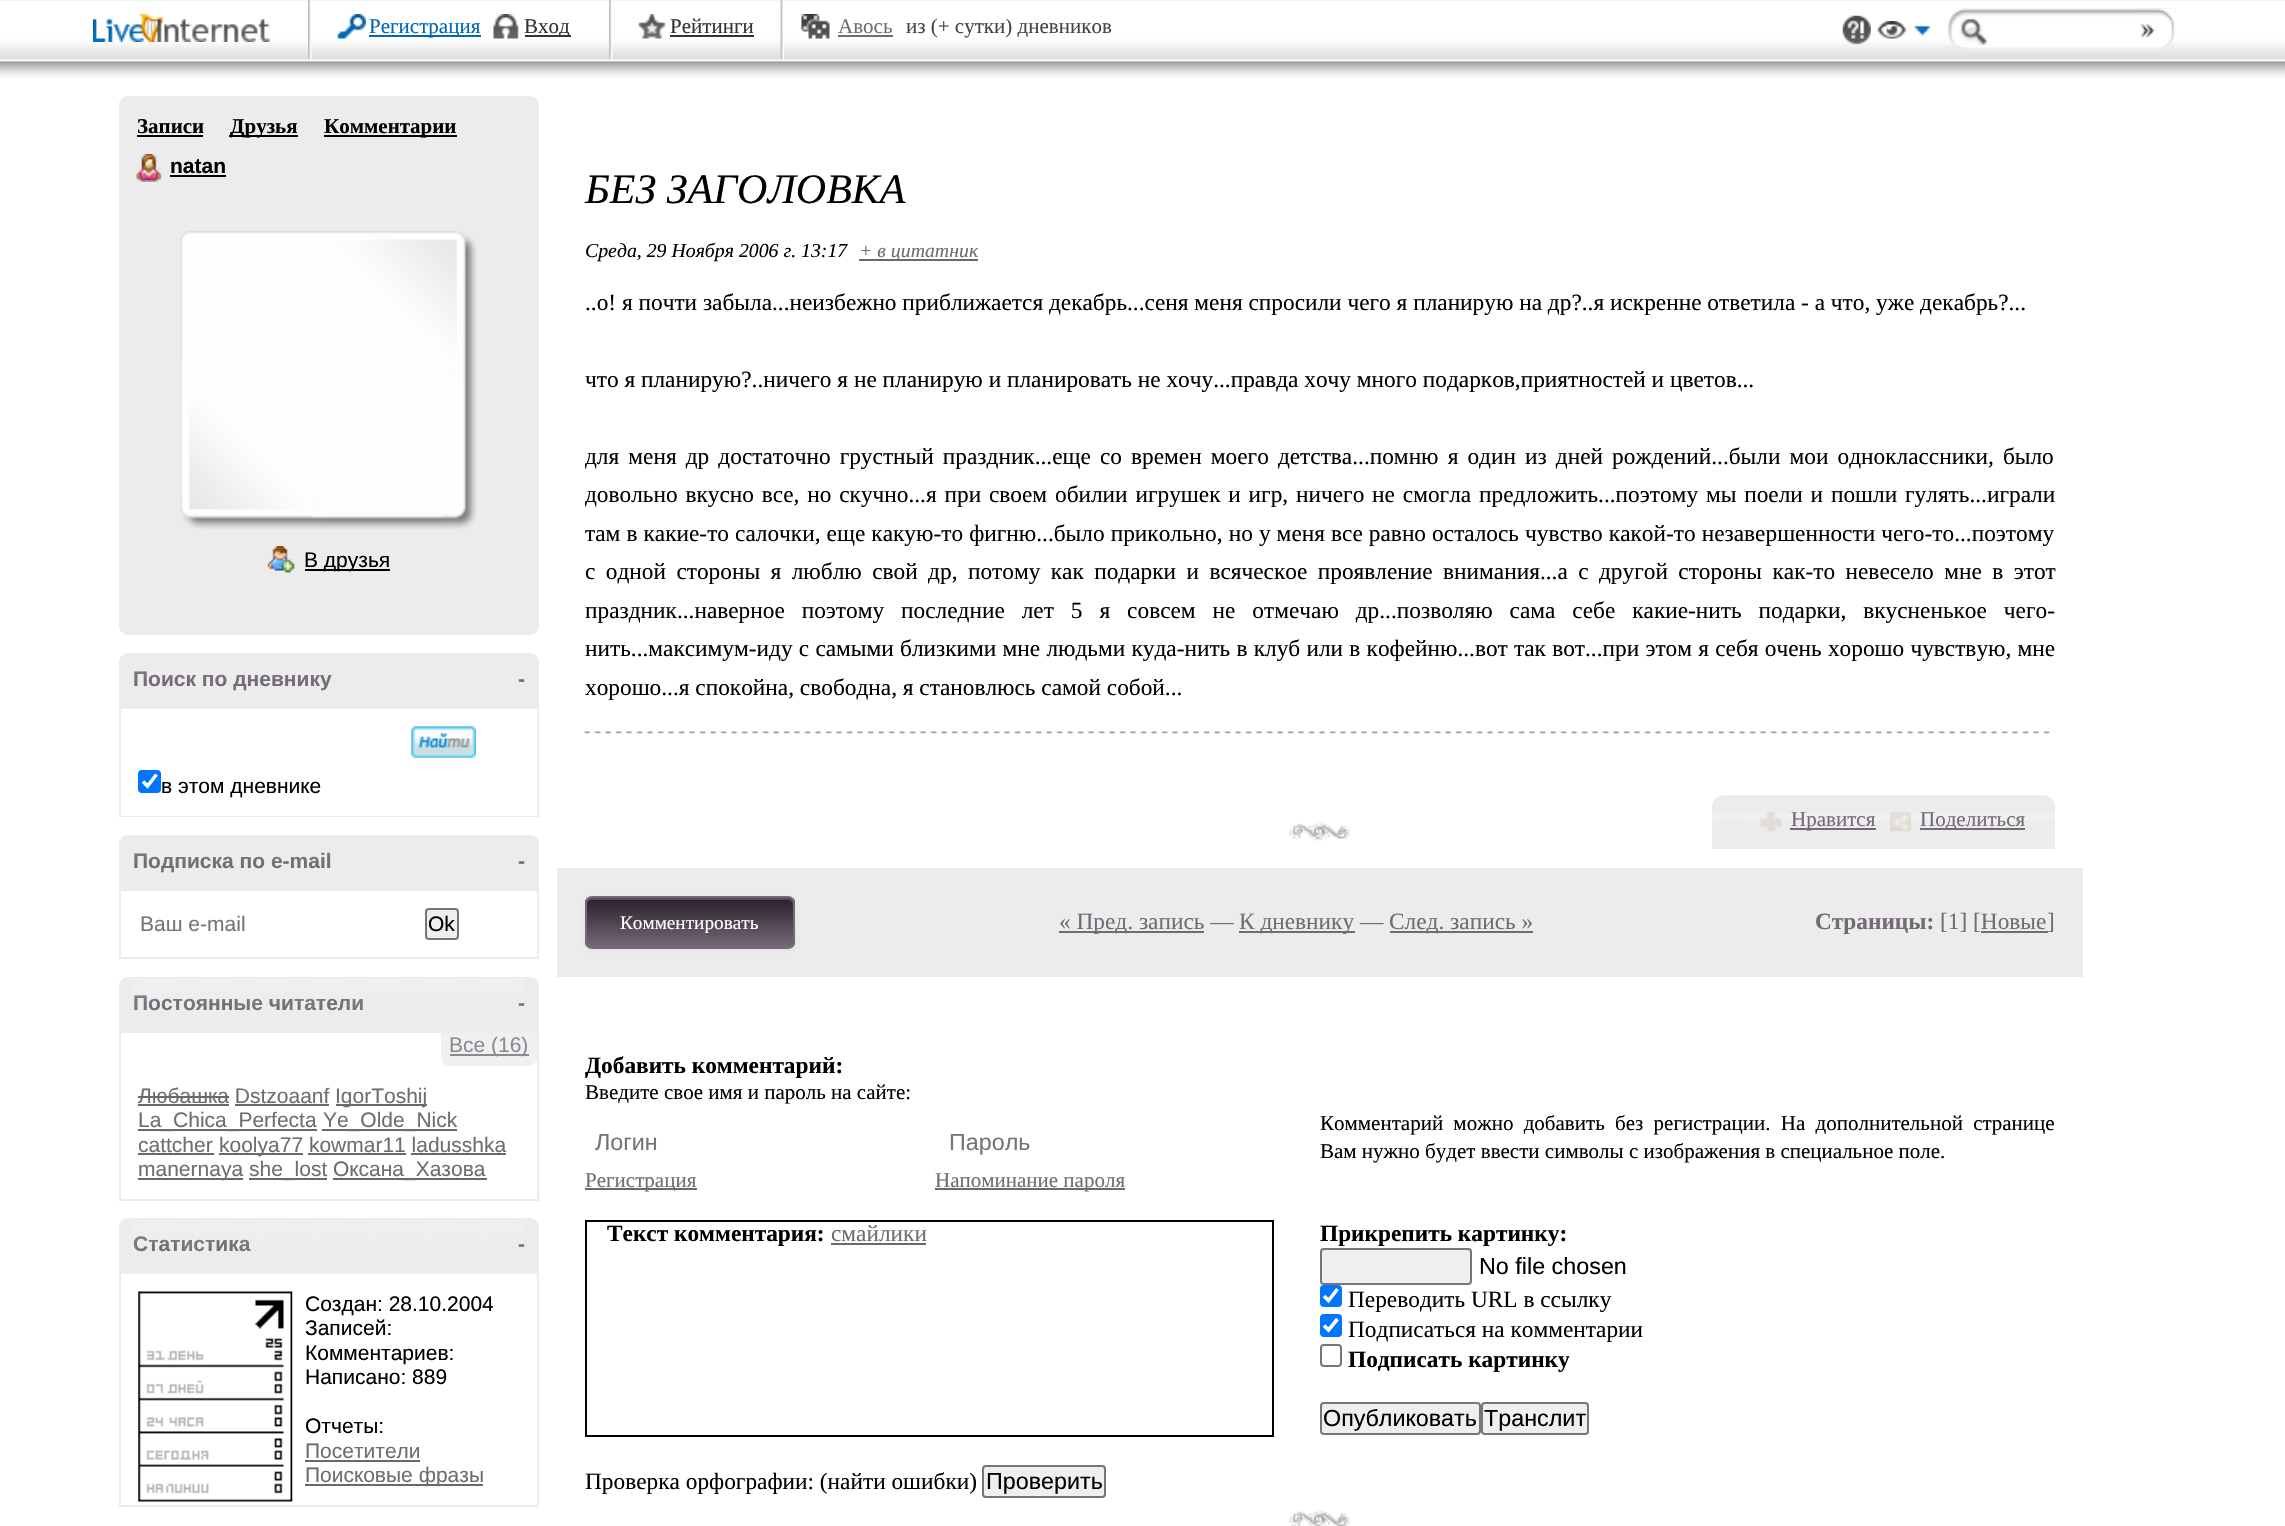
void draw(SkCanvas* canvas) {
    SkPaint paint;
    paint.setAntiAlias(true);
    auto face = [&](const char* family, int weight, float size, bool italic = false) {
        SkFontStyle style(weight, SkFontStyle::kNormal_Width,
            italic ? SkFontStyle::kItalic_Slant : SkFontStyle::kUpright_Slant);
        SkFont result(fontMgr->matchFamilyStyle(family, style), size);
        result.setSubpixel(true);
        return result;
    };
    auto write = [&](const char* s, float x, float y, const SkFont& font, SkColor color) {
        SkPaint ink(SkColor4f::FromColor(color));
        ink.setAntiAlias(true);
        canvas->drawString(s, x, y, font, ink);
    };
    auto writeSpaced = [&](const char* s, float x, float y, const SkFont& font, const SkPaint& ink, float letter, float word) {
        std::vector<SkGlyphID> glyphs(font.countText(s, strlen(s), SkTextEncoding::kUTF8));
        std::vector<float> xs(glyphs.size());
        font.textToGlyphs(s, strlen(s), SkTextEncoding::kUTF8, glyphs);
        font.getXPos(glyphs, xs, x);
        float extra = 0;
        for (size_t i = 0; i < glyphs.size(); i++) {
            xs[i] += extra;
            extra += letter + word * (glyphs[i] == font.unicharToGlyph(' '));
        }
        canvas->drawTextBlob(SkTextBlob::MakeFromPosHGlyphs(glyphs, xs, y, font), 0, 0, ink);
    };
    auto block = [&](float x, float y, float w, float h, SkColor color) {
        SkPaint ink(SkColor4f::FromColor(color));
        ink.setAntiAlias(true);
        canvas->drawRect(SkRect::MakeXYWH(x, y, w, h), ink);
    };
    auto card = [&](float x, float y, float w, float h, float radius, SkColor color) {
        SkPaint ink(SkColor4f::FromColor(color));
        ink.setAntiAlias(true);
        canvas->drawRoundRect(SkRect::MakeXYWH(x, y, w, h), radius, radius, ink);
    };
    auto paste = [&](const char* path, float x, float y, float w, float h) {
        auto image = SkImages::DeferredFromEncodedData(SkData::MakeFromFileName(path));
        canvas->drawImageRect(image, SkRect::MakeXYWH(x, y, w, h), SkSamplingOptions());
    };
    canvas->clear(SK_ColorWHITE);
    paste("pic1.png", 0, 0, 2285, 78);
    paste("pic2.png", 93, 14, 177, 28);
    paste("pic3.png", 308, 0, 4, 60);
    paste("pic4.png", 337, 14, 29, 25);
    block(369, 35, 112, 2, SkColorSetRGB(0, 103, 180));
    auto kFont1 = face("Liberation Serif", 400, 21);
    write("Регистрация", 369, 33, kFont1, SkColorSetRGB(0, 103, 180));
    paste("pic5.png", 493, 14, 26, 25);
    block(525, 35, 46, 2, SkColorSetRGB(51, 51, 51));
    write("Вход", 524, 33, kFont1, SkColorSetRGB(51, 51, 51));
    paste("pic3.png", 609, 0, 4, 60);
    paste("pic6.png", 638, 14, 28, 25);
    write("Рейтинги", 670, 33, kFont1, SkColorSetRGB(51, 51, 51));
    block(670, 35, 84, 2, SkColorSetRGB(51, 51, 51));
    paste("pic7.png", 780, 0, 4, 60);
    paste("pic8.png", 801, 14, 29, 25);
    write("Авось", 838, 33, kFont1, SkColorSetRGB(110, 110, 110));
    block(838, 35, 55, 2, SkColorSetRGB(110, 110, 110));
    write("из (+ сутки) дневников", 906, 33, kFont1, SkColorSetRGB(68, 68, 68));
    paste("pic9.png", 1842, 15, 29, 30);
    paste("pic10.png", 1877, 21, 54, 18);
    paste("pic11.png", 1947, 8, 229, 41);
    paste("pic12.png", 2137, 8, 39, 41);
    card(119, 96, 420, 539, 9, SkColorSetRGB(236, 236, 236));
    auto kFont2 = face("Liberation Serif", 700, 21);
    write("Записи", 137, 133, kFont2, SK_ColorBLACK);
    block(137, 135, 66, 2, SK_ColorBLACK);
    block(229, 135, 69, 2, SK_ColorBLACK);
    write("Друзья", 230, 133, kFont2, SK_ColorBLACK);
    block(324, 135, 133, 2, SK_ColorBLACK);
    write("Комментарии", 324, 133, kFont2, SK_ColorBLACK);
    paste("pic13.png", 136, 154, 26, 28);
    auto kFont3 = face("Liberation Sans", 700, 21);
    write("natan", 170, 173, kFont3, SK_ColorBLACK);
    block(170, 175, 56, 2, SK_ColorBLACK);
    paste("pic14.png", 180, 231, 297, 298);
    paste("pic15.png", 267, 546, 28, 27);
    block(305, 569, 85, 2, SK_ColorBLACK);
    auto kFont4 = face("Liberation Sans", 400, 21);
    write("В друзья", 304, 567, kFont4, SK_ColorBLACK);
    paint.setColor(SkColorSetRGB(236, 236, 236));
    canvas->drawPath(SkPathBuilder().moveTo(128, 654).lineTo(530, 654).cubicTo(534.5f, 654, 538, 657.5f, 538, 662).lineTo(538, 708).lineTo(120, 708).lineTo(120, 662).cubicTo(120, 657.5f, 123.5f, 654, 128, 654).close().detach(), paint);
    paint.setStyle(SkPaint::kStroke_Style);
    paint.setStrokeWidth(2);
    canvas->drawPath(SkPathBuilder().moveTo(128, 654).lineTo(530, 654).cubicTo(534.5f, 654, 538, 657.5f, 538, 662).lineTo(538, 708).lineTo(120, 708).lineTo(120, 662).cubicTo(120, 657.5f, 123.5f, 654, 128, 654).close().detach(), paint);
    write("Поиск по дневнику", 133, 686, kFont3, SkColorSetRGB(115, 106, 117));
    write("-", 518, 686, kFont3, SkColorSetRGB(115, 106, 117));
    paste("pic16.png", 134, 671, 197, 19);
    block(537, 709, 2, 108, SkColorSetRGB(236, 236, 236));
    block(119, 816, 420, 1, SkColorSetRGB(236, 236, 236));
    block(119, 709, 2, 108, SkColorSetRGB(236, 236, 236));
    paste("pic17.png", 411, 726, 65, 32);
    card(138, 770, 23, 23, 4, SkColorSetRGB(0, 117, 255));
    paint.setStrokeWidth(3.6f);
    paint.setColor(SK_ColorWHITE);
    canvas->drawPath(SkPathBuilder().moveTo(143, 781.5f).lineTo(147.5f, 786).lineTo(156.5f, 774.5f).detach(), paint);
    write("в этом дневнике", 161, 793, kFont4, SK_ColorBLACK);
    paint.setStyle(SkPaint::kFill_Style);
    paint.setColor(SkColorSetRGB(236, 236, 236));
    canvas->drawPath(SkPathBuilder().moveTo(128, 836).lineTo(530, 836).cubicTo(534.5f, 836, 538, 839.5f, 538, 844).lineTo(538, 890).lineTo(120, 890).lineTo(120, 844).cubicTo(120, 839.5f, 123.5f, 836, 128, 836).close().detach(), paint);
    paint.setStyle(SkPaint::kStroke_Style);
    paint.setStrokeWidth(2);
    canvas->drawPath(SkPathBuilder().moveTo(128, 836).lineTo(530, 836).cubicTo(534.5f, 836, 538, 839.5f, 538, 844).lineTo(538, 890).lineTo(120, 890).lineTo(120, 844).cubicTo(120, 839.5f, 123.5f, 836, 128, 836).close().detach(), paint);
    write("Подписка по e-mail", 133, 868, kFont3, SkColorSetRGB(115, 106, 117));
    write("-", 518, 868, kFont3, SkColorSetRGB(115, 106, 117));
    paste("pic18.png", 134, 852, 196, 20);
    block(537, 891, 2, 68, SkColorSetRGB(236, 236, 236));
    block(119, 957, 420, 2, SkColorSetRGB(236, 236, 236));
    block(119, 891, 2, 68, SkColorSetRGB(236, 236, 236));
    write("Ваш e-mail", 140, 931, kFont4, SkColorSetRGB(117, 117, 117));
    paint.setStyle(SkPaint::kFill_Style);
    paint.setColor(SkColorSetRGB(239, 239, 239));
    canvas->drawRoundRect(SkRect::MakeXYWH(426, 909, 32, 30), 3, 3, paint);
    paint.setStyle(SkPaint::kStroke_Style);
    paint.setColor(SkColorSetRGB(118, 118, 118));
    canvas->drawRoundRect(SkRect::MakeXYWH(426, 909, 32, 30), 3, 3, paint);
    write("Ok", 428, 931, kFont4, SK_ColorBLACK);
    paint.setStyle(SkPaint::kFill_Style);
    paint.setColor(SkColorSetRGB(236, 236, 236));
    canvas->drawPath(SkPathBuilder().moveTo(128, 978).lineTo(530, 978).cubicTo(534.5f, 978, 538, 981.5f, 538, 986).lineTo(538, 1032).lineTo(120, 1032).lineTo(120, 986).cubicTo(120, 981.5f, 123.5f, 978, 128, 978).close().detach(), paint);
    paint.setStyle(SkPaint::kStroke_Style);
    canvas->drawPath(SkPathBuilder().moveTo(128, 978).lineTo(530, 978).cubicTo(534.5f, 978, 538, 981.5f, 538, 986).lineTo(538, 1032).lineTo(120, 1032).lineTo(120, 986).cubicTo(120, 981.5f, 123.5f, 978, 128, 978).close().detach(), paint);
    write("Постоянные читатели", 133, 1010, kFont3, SkColorSetRGB(115, 106, 117));
    write("-", 518, 1010, kFont3, SkColorSetRGB(115, 106, 117));
    paste("pic19.png", 134, 979, 390, 31);
    block(537, 1033, 2, 168, SkColorSetRGB(236, 236, 236));
    block(119, 1199, 420, 2, SkColorSetRGB(236, 236, 236));
    block(119, 1033, 2, 168, SkColorSetRGB(236, 236, 236));
    paint.setStyle(SkPaint::kFill_Style);
    paint.setColor(SkColorSetRGB(240, 240, 240));
    canvas->drawPath(SkPathBuilder().moveTo(441, 1033).lineTo(537, 1033).lineTo(537, 1057).cubicTo(537, 1062, 533, 1066, 528, 1066).lineTo(450, 1066).cubicTo(445, 1066, 441, 1062, 441, 1057).close().detach(), paint);
    block(450, 1054, 79, 2, SkColorSetRGB(143, 136, 145));
    write("Все (16)", 449, 1052, kFont4, SkColorSetRGB(143, 136, 145));
    write("Любашка Dstzoaanf", 138, 1103, kFont4, SkColorSetRGB(110, 110, 110));
    block(138, 1104, 91, 2, SkColorSetRGB(105, 105, 105));
    block(138, 1096, 91, 2, SkColorSetRGB(105, 105, 105));
    block(336, 1104, 91, 2, SkColorSetRGB(105, 105, 105));
    write("IgorToshij", 335, 1103, kFont4, SkColorSetRGB(110, 110, 110));
    block(235, 1104, 94, 2, SkColorSetRGB(105, 105, 105));
    block(138, 1129, 179, 2, SkColorSetRGB(105, 105, 105));
    write("La_Chica_Perfecta", 138, 1127, kFont4, SkColorSetRGB(110, 110, 110));
    block(322, 1129, 135, 2, SkColorSetRGB(105, 105, 105));
    write("Ye_Olde_Nick", 323, 1127, kFont4, SkColorSetRGB(110, 110, 110));
    write("cattcher", 138, 1152, kFont4, SkColorSetRGB(110, 110, 110));
    block(138, 1153, 76, 2, SkColorSetRGB(105, 105, 105));
    block(219, 1153, 84, 2, SkColorSetRGB(105, 105, 105));
    write("koolya77 kowmar11 ladusshka", 219, 1152, kFont4, SkColorSetRGB(110, 110, 110));
    block(308, 1153, 98, 2, SkColorSetRGB(105, 105, 105));
    block(411, 1153, 95, 2, SkColorSetRGB(105, 105, 105));
    block(138, 1178, 105, 2, SkColorSetRGB(105, 105, 105));
    write("manernaya", 138, 1176, kFont4, SkColorSetRGB(110, 110, 110));
    block(249, 1178, 78, 2, SkColorSetRGB(105, 105, 105));
    write("she_lost", 249, 1176, kFont4, SkColorSetRGB(110, 110, 110));
    block(333, 1178, 154, 2, SkColorSetRGB(105, 105, 105));
    write("Оксана_Хазова", 333, 1176, kFont4, SkColorSetRGB(110, 110, 110));
    paint.setColor(SkColorSetRGB(236, 236, 236));
    canvas->drawPath(SkPathBuilder().moveTo(128, 1219).lineTo(530, 1219).cubicTo(534.5f, 1219, 538, 1222.5f, 538, 1227).lineTo(538, 1273).lineTo(120, 1273).lineTo(120, 1227).cubicTo(120, 1222.5f, 123.5f, 1219, 128, 1219).close().detach(), paint);
    paint.setStyle(SkPaint::kStroke_Style);
    canvas->drawPath(SkPathBuilder().moveTo(128, 1219).lineTo(530, 1219).cubicTo(534.5f, 1219, 538, 1222.5f, 538, 1227).lineTo(538, 1273).lineTo(120, 1273).lineTo(120, 1227).cubicTo(120, 1222.5f, 123.5f, 1219, 128, 1219).close().detach(), paint);
    write("Статистика", 133, 1251, kFont3, SkColorSetRGB(115, 106, 117));
    write("-", 518, 1251, kFont3, SkColorSetRGB(115, 106, 117));
    paste("pic20.png", 134, 1220, 390, 31);
    block(537, 1274, 2, 233, SkColorSetRGB(236, 236, 236));
    block(119, 1505, 420, 2, SkColorSetRGB(236, 236, 236));
    block(119, 1274, 2, 233, SkColorSetRGB(236, 236, 236));
    paste("pic21.png", 138, 1291, 155, 211);
    write("Создан: 28.10.2004", 305, 1311, kFont4, SK_ColorBLACK);
    write("Записей:", 305, 1335, kFont4, SK_ColorBLACK);
    write("Комментариев:", 305, 1360, kFont4, SK_ColorBLACK);
    write("Написано: 889", 305, 1384, kFont4, SK_ColorBLACK);
    write("Отчеты:", 305, 1433, kFont4, SK_ColorBLACK);
    write("Посетители", 305, 1458, kFont4, SkColorSetRGB(110, 110, 110));
    block(305, 1460, 115, 2, SkColorSetRGB(105, 105, 105));
    block(305, 1484, 178, 2, SkColorSetRGB(105, 105, 105));
    write("Поисковые фразы", 305, 1482, kFont4, SkColorSetRGB(110, 110, 110));
    paste("pic22.png", 1289, 822, 61, 19);
    auto kFont5 = face("Liberation Serif", 400, 42, true);
    write("БЕЗ ЗАГОЛОВКА", 585, 203, kFont5, SK_ColorBLACK);
    auto kFont6 = face("Liberation Serif", 400, 19.8f, true);
    write("Среда, 29 Ноября 2006 г. 13:17", 585, 257, kFont6, SK_ColorBLACK);
    block(859, 259, 119, 2, SkColorSetRGB(105, 105, 105));
    write("+ в цитатник", 859, 257, kFont6, SkColorSetRGB(110, 110, 110));
    paste("pic23.png", 584, 731, 1471, 3);
    auto kFont7 = face("Liberation Serif", 400, 23.33f);
    write("..о! я почти забыла...неизбежно приближается декабрь...сеня меня спросили чего я планирую на др?..я искренне ответила - а что, уже декабрь?...", 585, 310, kFont7, SK_ColorBLACK);
    write("что я планирую?..ничего я не планирую и планировать не хочу...правда хочу много подарков,приятностей и цветов...", 585, 387, kFont7, SK_ColorBLACK);
    paint.setStyle(SkPaint::kFill_Style);
    paint.setColor(SK_ColorBLACK);
    writeSpaced("для меня др достаточно грустный праздник...еще со времен моего детства...помню я один из дней рождений...были мои одноклассники, было", 585, 464, kFont7, paint, 0, 3.25f);
    writeSpaced("довольно вкусно все, но скучно...я при своем обилии игрушек и игр, ничего не смогла предложить...поэтому мы поели и пошли гулять...играли", 585, 502, kFont7, paint, 0, 2);
    writeSpaced("там в какие-то салочки, еще какую-то фигню...было прикольно, но у меня все равно осталось чувство какой-то незавершенности чего-то...поэтому", 585, 541, kFont7, paint, 0, 0.25f);
    writeSpaced("с одной стороны я люблю свой др, потому как подарки и всяческое проявление внимания...а с другой стороны как-то невесело мне в этот", 585, 579, kFont7, paint, 0, 4.6f);
    writeSpaced("праздник...наверное поэтому последние лет 5 я совсем не отмечаю др...позволяю сама себе какие-нить подарки, вкусненькое чего-", 585, 618, kFont7, paint, 0, 11.1f);
    writeSpaced("нить...максимум-иду с самыми близкими мне людьми куда-нить в клуб или в кофейню...вот так вот...при этом я себя очень хорошо чувствую, мне", 585, 656, kFont7, paint, 0, 0.4f);
    write("хорошо...я спокойна, свободна, я становлюсь самой собой...", 585, 695, kFont7, SK_ColorBLACK);
    paint.setColor(SkColorSetRGB(236, 236, 236));
    canvas->drawPath(SkPathBuilder().moveTo(1724, 795).lineTo(2043, 795).cubicTo(2049.5f, 795, 2055, 800.5f, 2055, 807).lineTo(2055, 849).lineTo(1712, 849).lineTo(1712, 807).cubicTo(1712, 800.5f, 1717.5f, 795, 1724, 795).close().detach(), paint);
    paste("pic24.png", 1712, 813, 342, 8);
    paste("pic25.png", 1760, 812, 22, 20);
    block(1790, 828, 86, 2, SkColorSetRGB(115, 106, 117));
    write("Нравится", 1791, 826, kFont1, SkColorSetRGB(115, 106, 117));
    paste("pic26.png", 1890, 812, 21, 20);
    block(1920, 828, 105, 2, SkColorSetRGB(115, 106, 117));
    write("Поделиться", 1920, 826, kFont1, SkColorSetRGB(115, 106, 117));
    block(557, 868, 1526, 109, SkColorSetRGB(236, 236, 236));
    paint.setColor(SkColorSetARGB(13, 0, 0, 0));
    paint.setMaskFilter(SkMaskFilter::MakeBlur(kNormal_SkBlurStyle, 2));
    canvas->drawRoundRect(SkRect::MakeXYWH(585, 898, 210, 52), 7, 7, paint);
    paint.setMaskFilter(nullptr);
    canvas->save();
    canvas->clipPath(SkPathBuilder().moveTo(592, 896).lineTo(788, 896).cubicTo(792, 896, 795, 899, 795, 903).lineTo(795, 942).cubicTo(795, 946, 792, 949, 788, 949).lineTo(592, 949).cubicTo(588, 949, 585, 946, 585, 942).lineTo(585, 903).cubicTo(585, 899, 588, 896, 592, 896).close().detach(), true);
    {
        const SkColor colors[] = {SkColorSetRGB(40, 31, 42), SkColorSetRGB(115, 106, 117)};
        const float stops[] = {0, 1};
        const SkPoint ends[] = {{690, 898}, {690, 947}};
        paint.setShader(SkGradientShader::MakeLinear(ends, colors, stops, 2, SkTileMode::kClamp));
        paint.setAlpha(255);
    }
    canvas->drawRect(SkRect::MakeXYWH(585, 898, 210, 49), paint);
    canvas->restore();
    paint.setShader(nullptr);
    paint.setColor(SkColorSetARGB(51, 255, 255, 255));
    canvas->drawPath(SkPathBuilder().moveTo(592, 900).lineTo(788, 900).cubicTo(790, 900, 793, 902, 793, 905).lineTo(793, 903).cubicTo(793, 900, 791, 898, 788, 898).lineTo(591, 898).cubicTo(588, 898, 586, 900, 586, 903).lineTo(586, 905).cubicTo(586, 902, 589, 900, 592, 900).close().detach(), paint);
    paint.setStyle(SkPaint::kStroke_Style);
    paint.setColor(SkColorSetRGB(115, 106, 117));
    canvas->drawRoundRect(SkRect::MakeXYWH(586, 897, 208, 51), 6, 6, paint);
    auto kFont8 = face("Liberation Serif", 400, 19.25f);
    write("Комментировать", 620, 929, kFont8, SK_ColorWHITE);
    block(1059, 931, 145, 2, SkColorSetRGB(115, 106, 117));
    write("« Пред. запись —", 1059, 929, kFont7, SkColorSetRGB(115, 106, 117));
    block(1239, 931, 116, 2, SkColorSetRGB(115, 106, 117));
    write("К дневнику —", 1239, 929, kFont7, SkColorSetRGB(115, 106, 117));
    block(1390, 931, 143, 2, SkColorSetRGB(115, 106, 117));
    write("След. запись »", 1389, 929, kFont7, SkColorSetRGB(115, 106, 117));
    auto kFont9 = face("Liberation Serif", 700, 23.33f);
    write("Страницы:", 1815, 929, kFont9, SkColorSetRGB(115, 106, 117));
    write("[1] [Новые", 1940, 929, kFont7, SkColorSetRGB(115, 106, 117));
    block(1981, 931, 67, 2, SkColorSetRGB(115, 106, 117));
    write("]", 2047, 929, kFont7, SkColorSetRGB(115, 106, 117));
    paste("pic27.png", 1289, 1510, 61, 16);
    write("Добавить комментарий:", 585, 1073, kFont9, SK_ColorBLACK);
    write("Введите свое имя и пароль на сайте:", 585, 1099, kFont1, SK_ColorBLACK);
    auto kFont10 = face("Liberation Sans", 400, 23.33f);
    write("Логин", 595, 1150, kFont10, SkColorSetRGB(117, 117, 117));
    write("Пароль", 949, 1150, kFont10, SkColorSetRGB(117, 117, 117));
    block(585, 1188, 112, 2, SkColorSetRGB(105, 105, 105));
    write("Регистрация", 585, 1187, kFont1, SkColorSetRGB(110, 110, 110));
    block(935, 1188, 190, 2, SkColorSetRGB(105, 105, 105));
    write("Напоминание пароля", 935, 1187, kFont1, SkColorSetRGB(110, 110, 110));
    paint.setStyle(SkPaint::kFill_Style);
    paint.setColor(SK_ColorBLACK);
    writeSpaced("Комментарий можно добавить без регистрации. На дополнительной странице", 1320, 1130, kFont1, paint, 0, 5);
    write("Вам нужно будет ввести символы с изображения в специальное поле.", 1320, 1158, kFont1, SK_ColorBLACK);
    paint.setStyle(SkPaint::kStroke_Style);
    canvas->drawRect(SkRect::MakeXYWH(586, 1221, 687, 215), paint);
    write("Текст комментария:", 607, 1241, kFont9, SK_ColorBLACK);
    write("смайлики", 831, 1241, kFont7, SkColorSetRGB(110, 110, 110));
    block(831, 1243, 95, 2, SkColorSetRGB(105, 105, 105));
    write("Проверка орфографии: (найти ошибки)", 585, 1489, kFont7, SK_ColorBLACK);
    paint.setStyle(SkPaint::kFill_Style);
    paint.setColor(SkColorSetRGB(239, 239, 239));
    canvas->drawRoundRect(SkRect::MakeXYWH(983, 1466, 122, 31), 3, 3, paint);
    paint.setStyle(SkPaint::kStroke_Style);
    paint.setColor(SkColorSetRGB(118, 118, 118));
    canvas->drawRoundRect(SkRect::MakeXYWH(983, 1466, 122, 31), 3, 3, paint);
    write("Проверить", 986, 1489, kFont10, SK_ColorBLACK);
    write("Прикрепить картинку:", 1320, 1241, kFont9, SK_ColorBLACK);
    paint.setStyle(SkPaint::kFill_Style);
    paint.setColor(SkColorSetRGB(239, 239, 239));
    canvas->drawRoundRect(SkRect::MakeXYWH(1321, 1249, 150, 35), 3, 3, paint);
    paint.setStyle(SkPaint::kStroke_Style);
    paint.setColor(SkColorSetRGB(118, 118, 118));
    canvas->drawRoundRect(SkRect::MakeXYWH(1321, 1249, 150, 35), 3, 3, paint);
    write("No file chosen", 1479, 1274, kFont10, SK_ColorBLACK);
    card(1320, 1285, 22, 22, 4, SkColorSetRGB(0, 117, 255));
    paint.setStrokeWidth(3.6f);
    paint.setColor(SK_ColorWHITE);
    canvas->drawPath(SkPathBuilder().moveTo(1324, 1296).lineTo(1328.5f, 1300.5f).lineTo(1337.5f, 1289).detach(), paint);
    write("Переводить URL в ссылку", 1348, 1307, kFont7, SK_ColorBLACK);
    card(1320, 1314, 22, 23, 4, SkColorSetRGB(0, 117, 255));
    canvas->drawPath(SkPathBuilder().moveTo(1324, 1325.5f).lineTo(1328.5f, 1330).lineTo(1337.5f, 1319).detach(), paint);
    write("Подписаться на комментарии", 1348, 1337, kFont7, SK_ColorBLACK);
    paint.setStrokeWidth(2);
    paint.setColor(SkColorSetRGB(118, 118, 118));
    canvas->drawRoundRect(SkRect::MakeXYWH(1321, 1345, 20, 21), 3, 3, paint);
    write("Подписать картинку", 1348, 1367, kFont9, SK_ColorBLACK);
    paint.setStyle(SkPaint::kFill_Style);
    paint.setColor(SkColorSetRGB(239, 239, 239));
    canvas->drawRoundRect(SkRect::MakeXYWH(1321, 1403, 159, 31), 3, 3, paint);
    paint.setStyle(SkPaint::kStroke_Style);
    paint.setColor(SkColorSetRGB(118, 118, 118));
    canvas->drawRoundRect(SkRect::MakeXYWH(1321, 1403, 159, 31), 3, 3, paint);
    write("Опубликовать", 1323, 1426, kFont10, SK_ColorBLACK);
    paint.setStyle(SkPaint::kFill_Style);
    paint.setColor(SkColorSetRGB(239, 239, 239));
    canvas->drawRoundRect(SkRect::MakeXYWH(1482, 1403, 106, 31), 3, 3, paint);
    paint.setStyle(SkPaint::kStroke_Style);
    paint.setColor(SkColorSetRGB(118, 118, 118));
    canvas->drawRoundRect(SkRect::MakeXYWH(1482, 1403, 106, 31), 3, 3, paint);
    write("Транслит", 1484, 1426, kFont10, SK_ColorBLACK);
}
